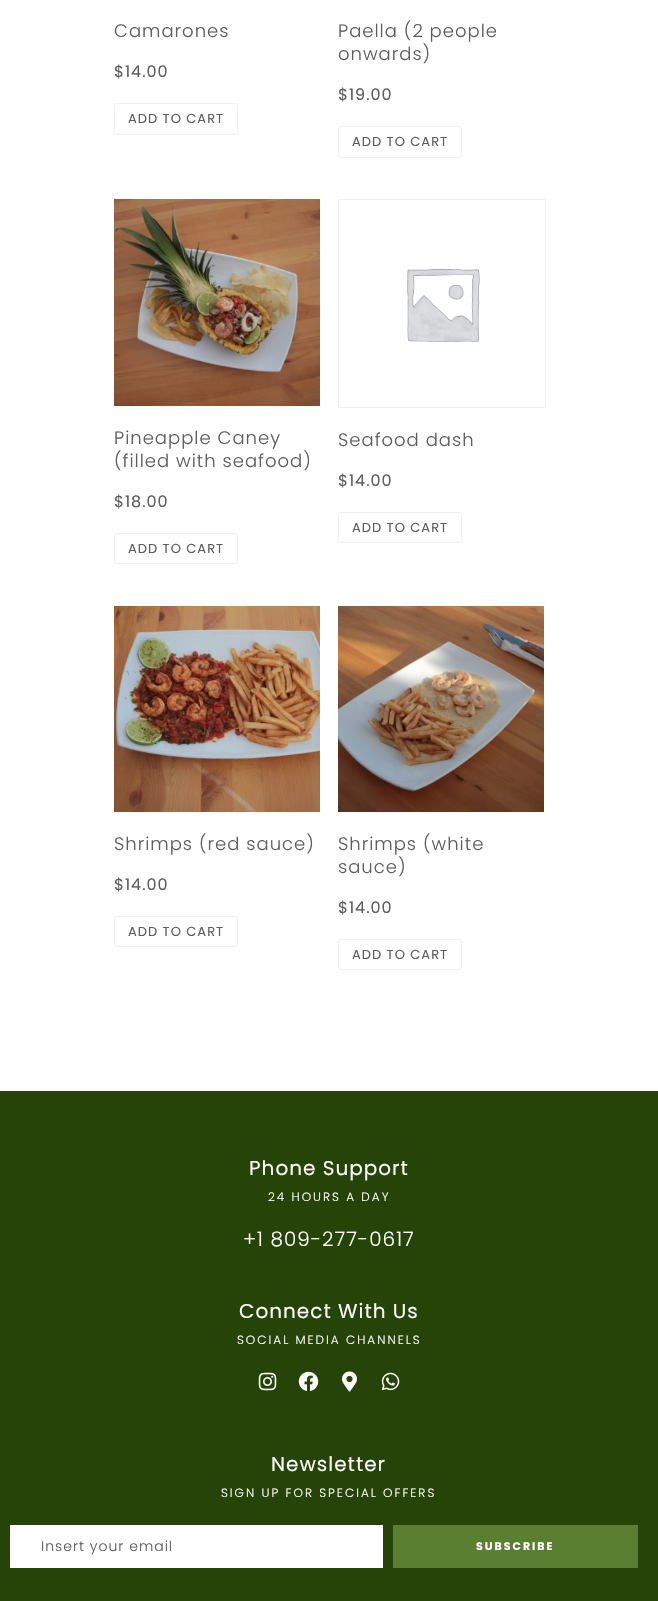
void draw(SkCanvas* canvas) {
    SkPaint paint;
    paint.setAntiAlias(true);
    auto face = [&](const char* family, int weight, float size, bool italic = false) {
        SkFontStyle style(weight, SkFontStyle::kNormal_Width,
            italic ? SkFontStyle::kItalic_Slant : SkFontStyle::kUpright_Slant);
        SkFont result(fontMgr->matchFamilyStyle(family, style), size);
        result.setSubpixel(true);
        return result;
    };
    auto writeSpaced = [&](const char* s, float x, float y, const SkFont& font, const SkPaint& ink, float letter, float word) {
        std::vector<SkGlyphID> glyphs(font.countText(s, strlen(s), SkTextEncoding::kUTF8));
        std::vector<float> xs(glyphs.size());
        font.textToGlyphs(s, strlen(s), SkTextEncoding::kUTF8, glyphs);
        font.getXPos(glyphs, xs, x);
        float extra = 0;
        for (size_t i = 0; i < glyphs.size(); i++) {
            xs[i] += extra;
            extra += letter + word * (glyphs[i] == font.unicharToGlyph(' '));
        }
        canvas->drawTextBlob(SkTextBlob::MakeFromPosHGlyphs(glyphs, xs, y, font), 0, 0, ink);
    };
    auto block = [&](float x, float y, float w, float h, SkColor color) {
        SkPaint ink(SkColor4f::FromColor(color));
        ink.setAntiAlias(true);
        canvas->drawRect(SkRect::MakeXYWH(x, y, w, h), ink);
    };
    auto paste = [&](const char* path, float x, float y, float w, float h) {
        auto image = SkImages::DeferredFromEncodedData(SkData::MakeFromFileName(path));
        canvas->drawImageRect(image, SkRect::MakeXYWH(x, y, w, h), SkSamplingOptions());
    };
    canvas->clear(SK_ColorWHITE);
    auto kFont1 = face("Poppins", 300, 18);
    paint.setColor(SkColorSetRGB(92, 92, 92));
    writeSpaced("Camarones", 114, 37, kFont1, paint, 1, 0);
    auto kFont2 = face("Poppins", 400, 16);
    writeSpaced("$14.00", 114, 77, kFont2, paint, 1, 0);
    paint.setStyle(SkPaint::kStroke_Style);
    paint.setStrokeWidth(1);
    paint.setColor(SkColorSetRGB(241, 241, 241));
    canvas->drawRoundRect(SkRect::MakeXYWH(114.5f, 103.5f, 123, 31), 2.5f, 2.5f, paint);
    auto kFont3 = face("Poppins", 400, 13);
    paint.setStyle(SkPaint::kFill_Style);
    paint.setColor(SkColorSetRGB(92, 92, 92));
    writeSpaced("ADD TO CART", 128, 123, kFont3, paint, 1, 0);
    writeSpaced("Paella (2 people", 338, 37, kFont1, paint, 1, 0);
    writeSpaced("onwards)", 338, 60, kFont1, paint, 1, 0);
    writeSpaced("$19.00", 338, 100, kFont2, paint, 1, 0);
    paint.setStyle(SkPaint::kStroke_Style);
    paint.setColor(SkColorSetRGB(241, 241, 241));
    canvas->drawRoundRect(SkRect::MakeXYWH(338.5f, 126.5f, 123, 31), 2.5f, 2.5f, paint);
    paint.setStyle(SkPaint::kFill_Style);
    paint.setColor(SkColorSetRGB(92, 92, 92));
    writeSpaced("ADD TO CART", 352, 146, kFont3, paint, 1, 0);
    paste("pic1.png", 114, 199, 206, 207);
    writeSpaced("Pineapple Caney", 114, 444, kFont1, paint, 1, 0);
    writeSpaced("(filled with seafood)", 114, 467, kFont1, paint, 1, 0);
    writeSpaced("$18.00", 114, 507, kFont2, paint, 1, 0);
    paint.setStyle(SkPaint::kStroke_Style);
    paint.setColor(SkColorSetRGB(241, 241, 241));
    canvas->drawRoundRect(SkRect::MakeXYWH(114.5f, 533.5f, 123, 30), 2.5f, 2.5f, paint);
    paint.setStyle(SkPaint::kFill_Style);
    paint.setColor(SkColorSetRGB(92, 92, 92));
    writeSpaced("ADD TO CART", 128, 553, kFont3, paint, 1, 0);
    paint.setStyle(SkPaint::kStroke_Style);
    paint.setColor(SkColorSetRGB(242, 242, 242));
    canvas->drawRect(SkRect::MakeXYWH(338.5f, 199.5f, 207, 208), paint);
    paste("pic2.png", 407, 269, 73, 73);
    paint.setStyle(SkPaint::kFill_Style);
    paint.setColor(SkColorSetRGB(92, 92, 92));
    writeSpaced("Seafood dash", 338, 446, kFont1, paint, 1, 0);
    writeSpaced("$14.00", 338, 486, kFont2, paint, 1, 0);
    paint.setStyle(SkPaint::kStroke_Style);
    paint.setColor(SkColorSetRGB(241, 241, 241));
    canvas->drawRoundRect(SkRect::MakeXYWH(338.5f, 512.5f, 123, 30), 2.5f, 2.5f, paint);
    paint.setStyle(SkPaint::kFill_Style);
    paint.setColor(SkColorSetRGB(92, 92, 92));
    writeSpaced("ADD TO CART", 352, 532, kFont3, paint, 1, 0);
    paste("pic3.png", 114, 606, 206, 206);
    writeSpaced("Shrimps (red sauce)", 114, 850, kFont1, paint, 1, 0);
    writeSpaced("$14.00", 114, 890, kFont2, paint, 1, 0);
    paint.setStyle(SkPaint::kStroke_Style);
    paint.setColor(SkColorSetRGB(241, 241, 241));
    canvas->drawRoundRect(SkRect::MakeXYWH(114.5f, 916.5f, 123, 30), 2.5f, 2.5f, paint);
    paint.setStyle(SkPaint::kFill_Style);
    paint.setColor(SkColorSetRGB(92, 92, 92));
    writeSpaced("ADD TO CART", 128, 936, kFont3, paint, 1, 0);
    paste("pic4.png", 338, 606, 206, 206);
    writeSpaced("Shrimps (white", 338, 850, kFont1, paint, 1, 0);
    writeSpaced("sauce)", 338, 873, kFont1, paint, 1, 0);
    writeSpaced("$14.00", 338, 913, kFont2, paint, 1, 0);
    paint.setStyle(SkPaint::kStroke_Style);
    paint.setColor(SkColorSetRGB(241, 241, 241));
    canvas->drawRoundRect(SkRect::MakeXYWH(338.5f, 939.5f, 123, 30), 2.5f, 2.5f, paint);
    paint.setStyle(SkPaint::kFill_Style);
    paint.setColor(SkColorSetRGB(92, 92, 92));
    writeSpaced("ADD TO CART", 352, 959, kFont3, paint, 1, 0);
    block(0, 1091, 658, 510, SkColorSetRGB(39, 68, 8));
    auto kFont4 = face("Poppins", 400, 20);
    paint.setColor(SK_ColorWHITE);
    writeSpaced("Phone Support", 249, 1175, kFont4, paint, 1, 0);
    auto kFont5 = face("Poppins", 300, 12);
    writeSpaced("24 HOURS A DAY", 268, 1201, kFont5, paint, 2, 0);
    auto kFont6 = face("Poppins", 300, 20);
    writeSpaced("+1 809-277-0617", 243, 1246, kFont6, paint, 1, 0);
    writeSpaced("Connect With Us", 239, 1318, kFont4, paint, 1, 0);
    writeSpaced("SOCIAL MEDIA CHANNELS", 237, 1344, kFont5, paint, 2, 0);
    paste("pic5.png", 258, 1372, 19, 19);
    paste("pic6.png", 298, 1371, 21, 20);
    paste("pic7.png", 342, 1371, 15, 21);
    paste("pic8.png", 381, 1372, 19, 19);
    writeSpaced("Newsletter", 271, 1471, kFont4, paint, 1, 0);
    writeSpaced("SIGN UP FOR SPECIAL OFFERS", 221, 1497, kFont5, paint, 2, 0);
    block(10, 1525, 373, 43, SK_ColorWHITE);
    auto kFont7 = face("Poppins", 300, 14);
    paint.setColor(SkColorSetRGB(92, 92, 92));
    writeSpaced("Insert your email", 41, 1551, kFont7, paint, 1, 0);
    block(393, 1525, 245, 43, SkColorSetRGB(90, 127, 49));
    auto kFont8 = face("Poppins", 700, 11);
    paint.setColor(SK_ColorWHITE);
    writeSpaced("SUBSCRIBE", 476, 1550, kFont8, paint, 2, 0);
}
